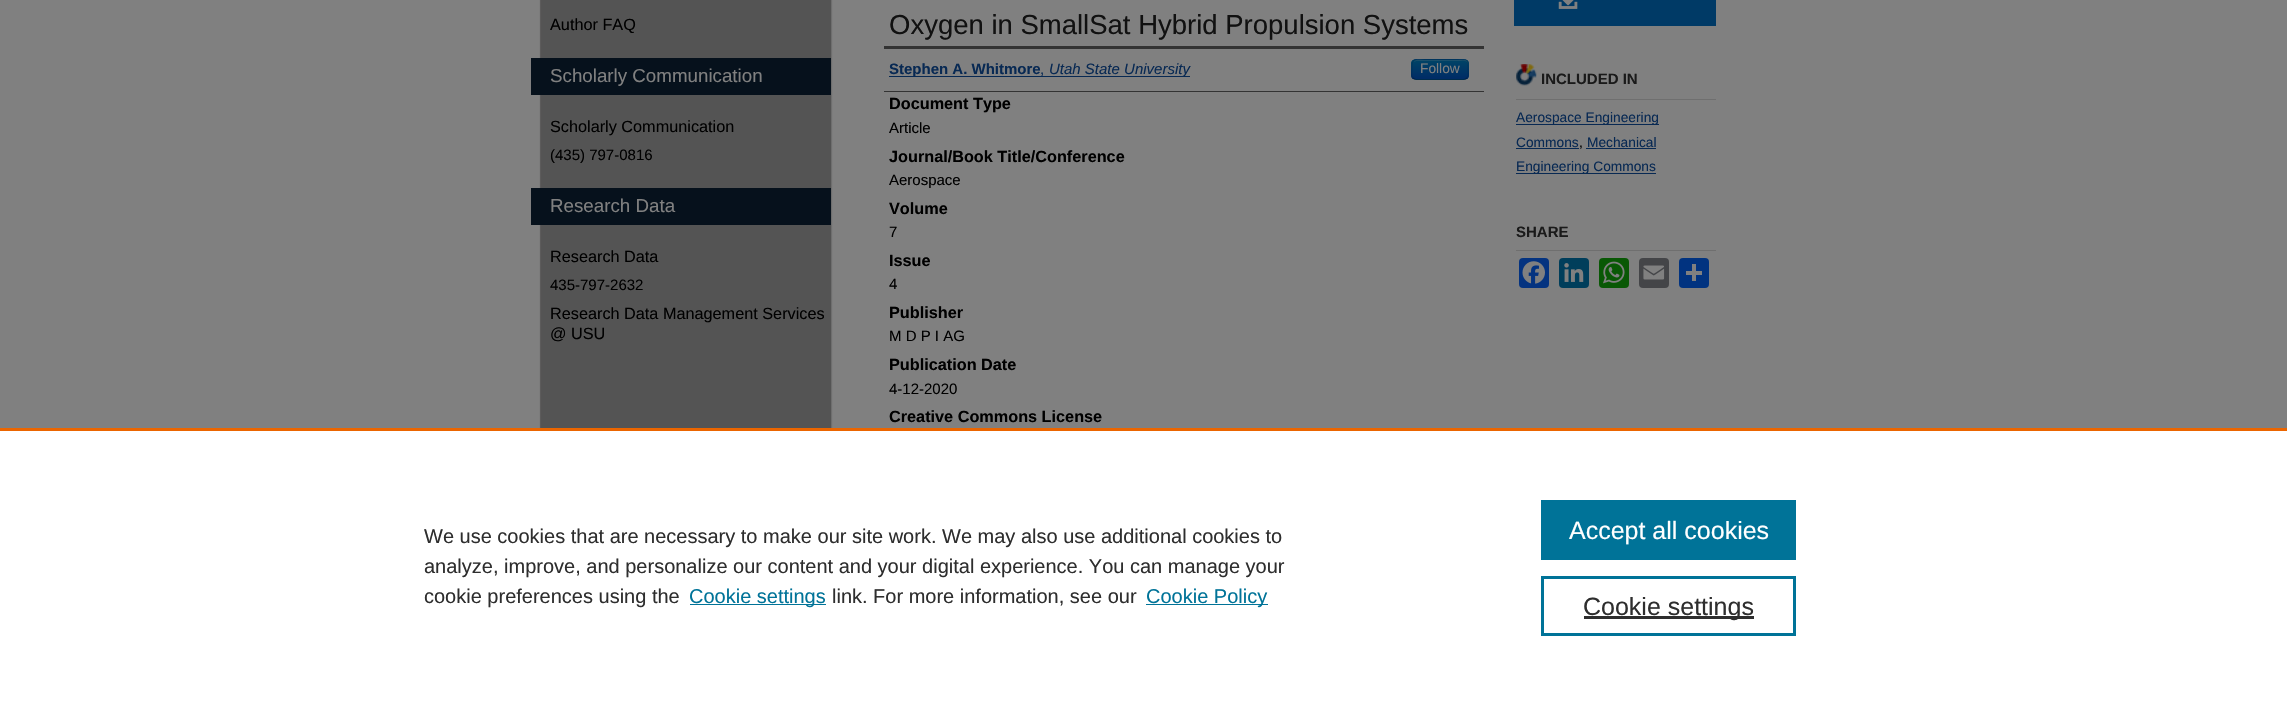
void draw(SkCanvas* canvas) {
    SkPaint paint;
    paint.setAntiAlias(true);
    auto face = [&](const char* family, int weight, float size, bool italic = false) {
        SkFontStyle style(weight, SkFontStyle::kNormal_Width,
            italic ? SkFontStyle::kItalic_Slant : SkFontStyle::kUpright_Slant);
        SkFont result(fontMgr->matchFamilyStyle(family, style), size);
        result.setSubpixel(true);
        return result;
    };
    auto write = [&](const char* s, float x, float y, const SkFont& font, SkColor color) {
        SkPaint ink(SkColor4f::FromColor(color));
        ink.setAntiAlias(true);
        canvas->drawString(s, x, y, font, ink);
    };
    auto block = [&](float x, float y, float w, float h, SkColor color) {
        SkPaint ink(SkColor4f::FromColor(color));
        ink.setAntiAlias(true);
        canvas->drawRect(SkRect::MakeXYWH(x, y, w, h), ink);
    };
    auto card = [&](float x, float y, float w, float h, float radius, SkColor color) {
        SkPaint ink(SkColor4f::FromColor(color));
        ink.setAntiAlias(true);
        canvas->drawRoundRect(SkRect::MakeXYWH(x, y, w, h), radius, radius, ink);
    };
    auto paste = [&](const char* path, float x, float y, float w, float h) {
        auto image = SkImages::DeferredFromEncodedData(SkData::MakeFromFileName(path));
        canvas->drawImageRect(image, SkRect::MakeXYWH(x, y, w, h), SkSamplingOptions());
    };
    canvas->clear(SkColorSetRGB(128, 128, 128));
    paste("pic1.png", 539, 0, 294, 428);
    auto kFont1 = face("Liberation Sans", 400, 16.25f);
    write("Author FAQ", 550, 30, kFont1, SK_ColorBLACK);
    block(531, 58, 300, 37, SkColorSetRGB(6, 17, 28));
    auto kFont2 = face("Liberation Sans", 400, 18.75f);
    write("Scholarly Communication", 550, 82, kFont2, SkColorSetRGB(128, 128, 128));
    write("Scholarly Communication", 550, 132, kFont1, SK_ColorBLACK);
    auto kFont3 = face("Liberation Sans", 400, 15);
    write("(435) 797-0816", 550, 160, kFont3, SK_ColorBLACK);
    block(531, 188, 300, 37, SkColorSetRGB(6, 17, 28));
    write("Research Data", 550, 212, kFont2, SkColorSetRGB(128, 128, 128));
    write("Research Data", 550, 262, kFont1, SK_ColorBLACK);
    write("435-797-2632", 550, 290, kFont3, SK_ColorBLACK);
    write("Research Data Management Services", 550, 319, kFont1, SK_ColorBLACK);
    write("@ USU", 550, 339, kFont1, SK_ColorBLACK);
    auto kFont4 = face("Liberation Sans", 400, 27.5f);
    write("Oxygen in SmallSat Hybrid Propulsion Systems", 889, 34, kFont4, SkColorSetRGB(17, 17, 17));
    block(884, 46, 600, 3, SkColorSetRGB(51, 51, 51));
    block(884, 91, 600, 1, SkColorSetRGB(51, 51, 51));
    block(889, 76, 301, 1, SkColorSetRGB(8, 41, 83));
    auto kFont5 = face("Liberation Sans", 700, 15);
    write("Stephen A. Whitmore", 889, 74, kFont5, SkColorSetRGB(8, 41, 83));
    write(",", 1040, 74, kFont3, SkColorSetRGB(8, 41, 83));
    auto kFont6 = face("Liberation Sans", 400, 15, true);
    write("Utah State University", 1049, 74, kFont6, SkColorSetRGB(8, 41, 83));
    card(1411, 59, 58, 21, 5, SkColorSetRGB(0, 58, 102));
    canvas->save();
    canvas->clipPath(SkPathBuilder().moveTo(1416, 59).lineTo(1464, 59).cubicTo(1467, 59, 1469, 61, 1469, 64).lineTo(1469, 75).cubicTo(1469, 78, 1467, 80, 1464, 80).lineTo(1416, 80).cubicTo(1413, 80, 1411, 78, 1411, 75).lineTo(1411, 64).cubicTo(1411, 61, 1413, 59, 1416, 59).close().detach(), true);
    {
        const SkColor colors[] = {SkColorSetRGB(0, 68, 102), SkColorSetRGB(0, 43, 102)};
        const float stops[] = {0, 1};
        const SkPoint ends[] = {{1440, 60}, {1440, 79}};
        paint.setShader(SkGradientShader::MakeLinear(ends, colors, stops, 2, SkTileMode::kClamp));
        paint.setAlpha(255);
    }
    canvas->drawRect(SkRect::MakeXYWH(1411, 60, 58, 19), paint);
    canvas->restore();
    paint.setShader(nullptr);
    paint.setColor(SkColorSetARGB(51, 128, 128, 128));
    canvas->drawPath(SkPathBuilder().moveTo(1416, 61).lineTo(1461, 61).cubicTo(1468, 60, 1468, 63, 1468, 69).lineTo(1468, 76).lineTo(1468, 68).cubicTo(1468, 58, 1466, 60, 1456, 60).lineTo(1425, 60).cubicTo(1422, 60, 1416, 58, 1414, 62).close().detach(), paint);
    paint.setStyle(SkPaint::kStroke_Style);
    paint.setStrokeWidth(1.2f);
    paint.setColor(SkColorSetARGB(64, 0, 0, 0));
    canvas->drawPath(SkPathBuilder().moveTo(1467, 78).cubicTo(1466, 79, 1465, 79.5f, 1464, 79.5f).lineTo(1416, 79.5f).cubicTo(1415, 79.5f, 1414, 79, 1413, 78).detach(), paint);
    paint.setColor(SkColorSetARGB(26, 0, 0, 0));
    canvas->drawPath(SkPathBuilder().moveTo(1413, 78).cubicTo(1411, 76, 1412, 72, 1412, 69.5f).cubicTo(1412, 58.5f, 1412.5f, 59.5f, 1424, 59.5f).lineTo(1456, 59.5f).cubicTo(1467.5f, 59.5f, 1468, 58.5f, 1468, 69.5f).cubicTo(1468, 72, 1469, 76, 1467, 78).detach(), paint);
    auto kFont7 = face("Liberation Sans", 400, 13.75f);
    write("Follow", 1420, 73, kFont7, SkColorSetRGB(128, 128, 128));
    auto kFont8 = face("Liberation Sans", 700, 16.25f);
    write("Document Type", 889, 109, kFont8, SK_ColorBLACK);
    write("Article", 889, 133, kFont3, SK_ColorBLACK);
    write("Journal/Book Title/Conference", 889, 162, kFont8, SK_ColorBLACK);
    write("Aerospace", 889, 185, kFont3, SK_ColorBLACK);
    write("Volume", 889, 214, kFont8, SK_ColorBLACK);
    write("7", 889, 237, kFont3, SK_ColorBLACK);
    write("Issue", 889, 266, kFont8, SK_ColorBLACK);
    write("4", 889, 289, kFont3, SK_ColorBLACK);
    write("Publisher", 889, 318, kFont8, SK_ColorBLACK);
    write("M D P I AG", 889, 341, kFont3, SK_ColorBLACK);
    write("Publication Date", 889, 370, kFont8, SK_ColorBLACK);
    write("4-12-2020", 889, 394, kFont3, SK_ColorBLACK);
    write("Creative Commons License", 889, 422, kFont8, SK_ColorBLACK);
    block(1514, 0, 202, 26, SkColorSetRGB(0, 58, 102));
    paste("pic2.png", 1558, 0, 20, 9);
    paste("pic3.png", 1516, 64, 21, 22);
    block(1516, 99, 200, 1, SkColorSetRGB(111, 111, 111));
    write("INCLUDED IN", 1541, 84, kFont5, SkColorSetRGB(26, 26, 26));
    block(1516, 124, 143, 1, SkColorSetRGB(8, 41, 83));
    write("Aerospace Engineering", 1516, 122, kFont7, SkColorSetRGB(8, 41, 83));
    write("Commons", 1516, 147, kFont7, SkColorSetRGB(8, 41, 83));
    block(1516, 148, 63, 1, SkColorSetRGB(8, 41, 83));
    write(",", 1579, 147, kFont7, SK_ColorBLACK);
    write("Mechanical", 1587, 147, kFont7, SkColorSetRGB(8, 41, 83));
    block(1586, 148, 70, 1, SkColorSetRGB(8, 41, 83));
    block(1516, 173, 140, 1, SkColorSetRGB(8, 41, 83));
    write("Engineering Commons", 1516, 171, kFont7, SkColorSetRGB(8, 41, 83));
    block(1516, 250, 200, 1, SkColorSetRGB(111, 111, 111));
    write("SHARE", 1516, 237, kFont5, SkColorSetRGB(26, 26, 26));
    card(1519, 258, 30, 30, 4, SkColorSetRGB(4, 51, 128));
    paste("pic4.png", 1522, 261, 23, 23);
    card(1559, 258, 30, 30, 4, SkColorSetRGB(0, 62, 91));
    paste("pic5.png", 1564, 263, 20, 19);
    card(1599, 258, 30, 30, 4, SkColorSetRGB(9, 88, 5));
    paste("pic6.png", 1603, 261, 22, 23);
    card(1639, 258, 30, 30, 4, SkColorSetRGB(68, 69, 72));
    paste("pic7.png", 1643, 265, 22, 15);
    card(1679, 258, 30, 30, 4, SkColorSetRGB(1, 51, 128));
    block(1692, 264, 4, 17, SkColorSetRGB(128, 128, 128));
    block(1686, 271, 16, 4, SkColorSetRGB(128, 128, 128));
    block(0, 431, 2287, 271, SK_ColorWHITE);
    block(0, 428, 2287, 3, SkColorSetRGB(235, 101, 0));
    auto kFont9 = face("Liberation Sans", 400, 20);
    write("We use cookies that are necessary to make our site work. We may also use additional cookies to", 424, 543, kFont9, SkColorSetRGB(46, 46, 46));
    write("analyze, improve, and personalize our content and your digital experience. You can manage your", 424, 573, kFont9, SkColorSetRGB(46, 46, 46));
    write("cookie preferences using the", 424, 603, kFont9, SkColorSetRGB(46, 46, 46));
    block(690, 604, 136, 1, SkColorSetRGB(0, 115, 152));
    write("Cookie settings", 689, 603, kFont9, SkColorSetRGB(0, 115, 152));
    write("link. For more information, see our", 832, 603, kFont9, SkColorSetRGB(46, 46, 46));
    block(1146, 604, 122, 1, SkColorSetRGB(0, 115, 152));
    write("Cookie Policy", 1146, 603, kFont9, SkColorSetRGB(0, 115, 152));
    block(1541, 500, 255, 60, SkColorSetRGB(0, 115, 152));
    auto kFont10 = face("Liberation Sans", 400, 25);
    write("Accept all cookies", 1569, 539, kFont10, SK_ColorWHITE);
    paint.setStrokeWidth(3);
    paint.setColor(SkColorSetRGB(0, 115, 152));
    canvas->drawRect(SkRect::MakeXYWH(1542.5f, 577.5f, 252, 57), paint);
    block(1584, 616, 170, 3, SkColorSetRGB(46, 46, 46));
    write("Cookie settings", 1583, 615, kFont10, SkColorSetRGB(46, 46, 46));
}
